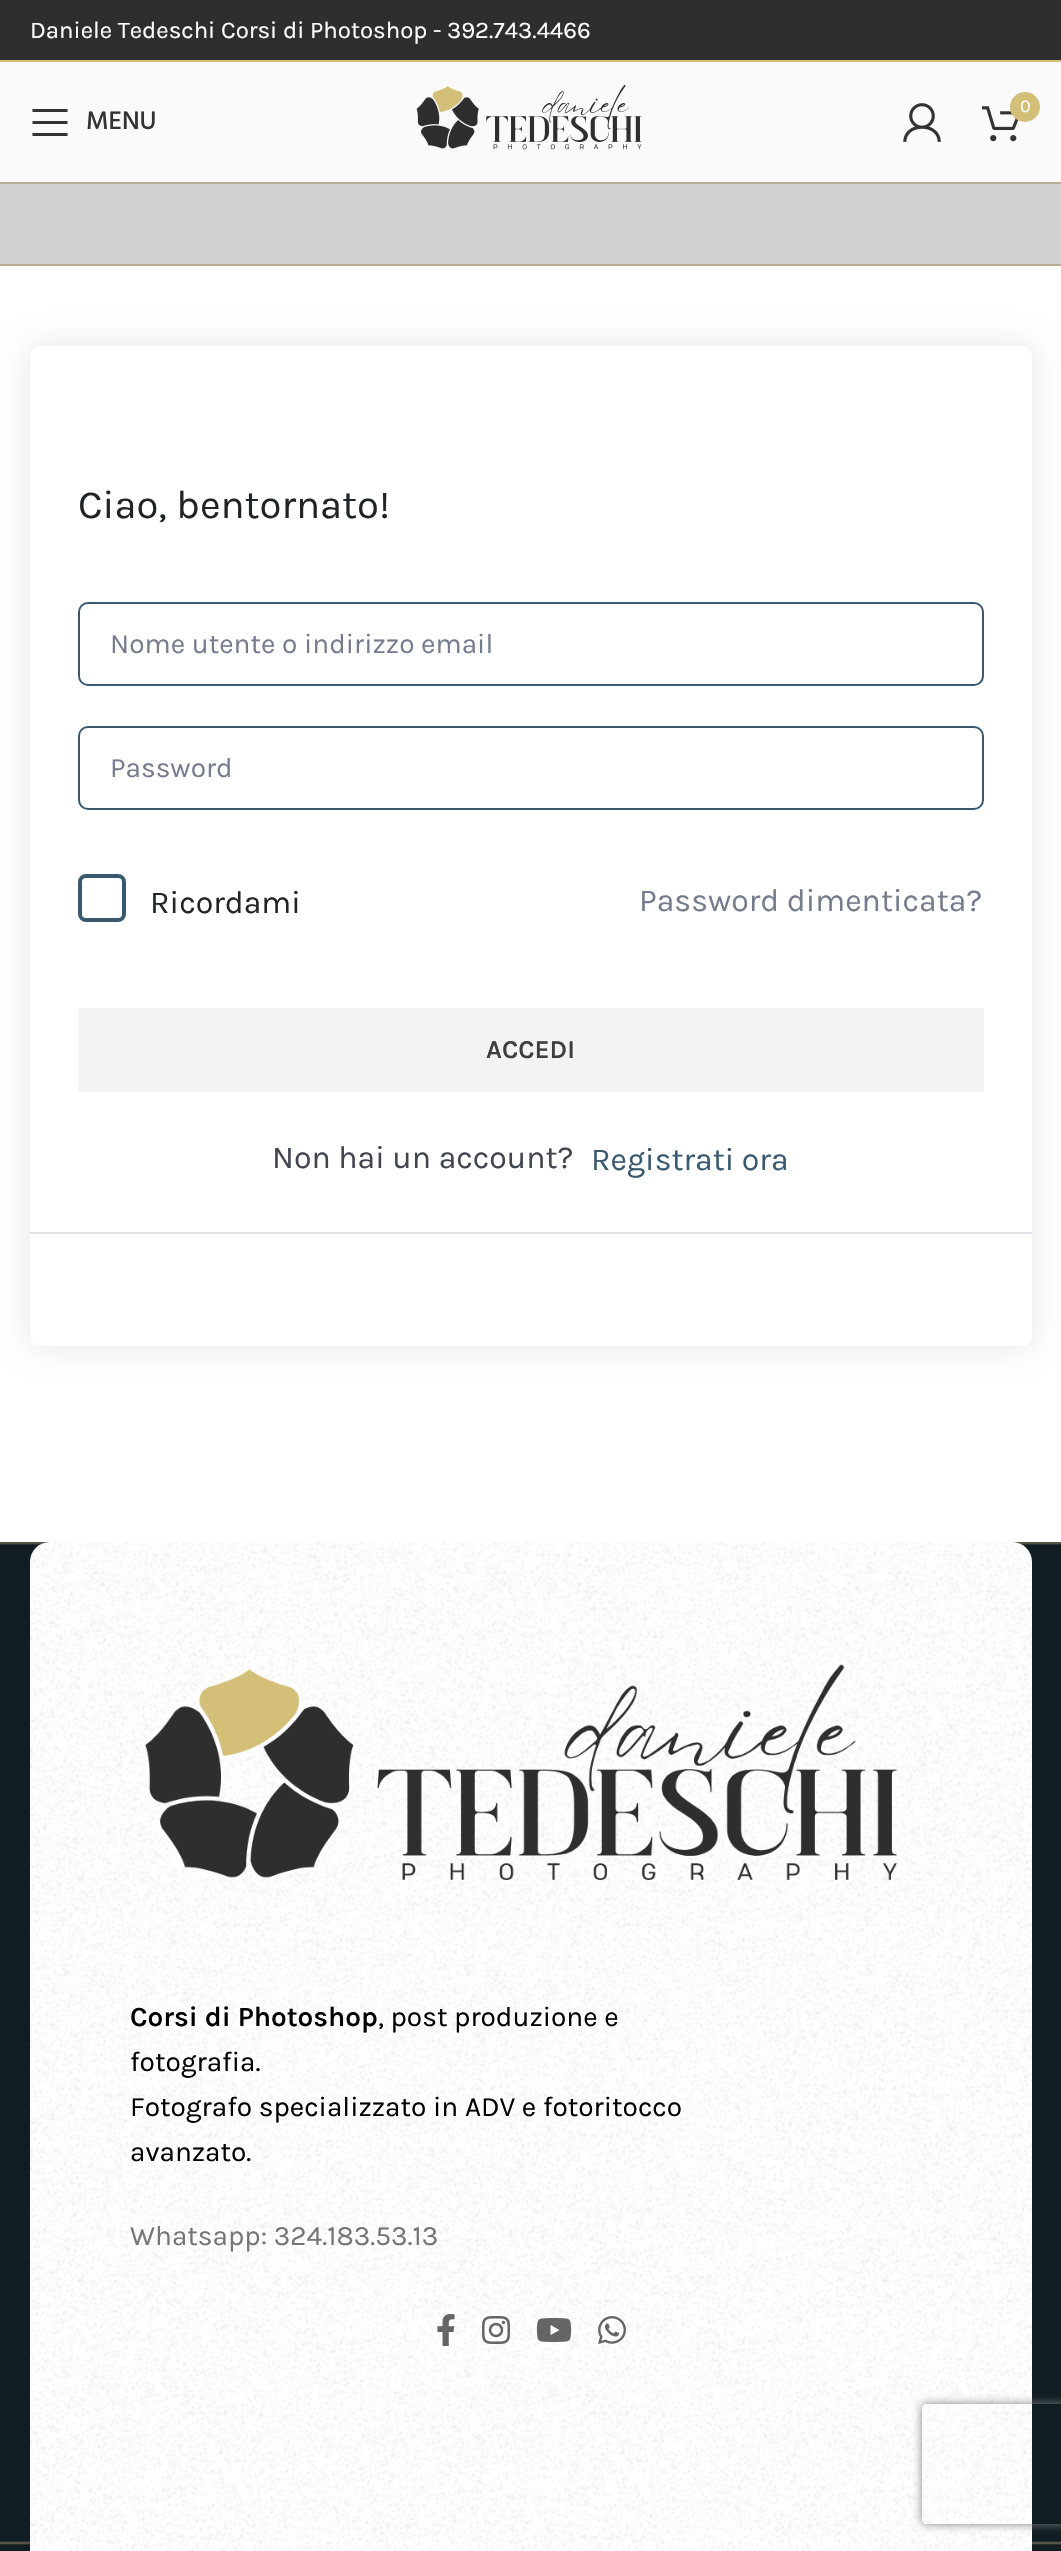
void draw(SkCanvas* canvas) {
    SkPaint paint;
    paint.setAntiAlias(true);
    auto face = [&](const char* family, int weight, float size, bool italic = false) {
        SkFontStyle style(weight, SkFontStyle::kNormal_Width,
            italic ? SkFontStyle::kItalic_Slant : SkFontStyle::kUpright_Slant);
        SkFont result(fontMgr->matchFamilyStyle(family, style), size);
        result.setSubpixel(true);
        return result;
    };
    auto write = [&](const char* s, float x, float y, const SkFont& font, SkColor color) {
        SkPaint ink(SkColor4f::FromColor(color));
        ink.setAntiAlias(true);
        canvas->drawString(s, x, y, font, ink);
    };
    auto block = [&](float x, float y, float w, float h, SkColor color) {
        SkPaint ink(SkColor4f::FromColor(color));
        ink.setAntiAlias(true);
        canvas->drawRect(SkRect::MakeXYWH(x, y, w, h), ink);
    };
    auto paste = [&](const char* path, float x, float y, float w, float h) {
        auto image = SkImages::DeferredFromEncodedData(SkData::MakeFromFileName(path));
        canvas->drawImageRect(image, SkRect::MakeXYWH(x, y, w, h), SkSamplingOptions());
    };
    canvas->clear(SK_ColorWHITE);
    block(0, 0, 1061, 60, SkColorSetRGB(46, 46, 46));
    block(0, 60, 1061, 2, SkColorSetRGB(211, 191, 120));
    auto kFont1 = face("Karla", 400, 24);
    write("Daniele Tedeschi Corsi di Photoshop - 392.743.4466", 30, 38, kFont1, SK_ColorWHITE);
    block(0, 62, 1061, 120, SkColorSetRGB(250, 250, 250));
    block(0, 182, 1061, 2, SkColorSetRGB(188, 173, 152));
    paste("pic1.png", 416, 84, 226, 66);
    paste("pic2.png", 903, 103, 38, 39);
    paste("pic3.png", 982, 106, 37, 36);
    paint.setColor(SkColorSetRGB(211, 191, 120));
    canvas->drawCircle(1025, 107, 15, paint);
    auto kFont2 = face("Karla", 400, 18);
    write("0", 1020, 112, kFont2, SK_ColorWHITE);
    paint.setColor(SkColorSetRGB(51, 51, 51));
    canvas->drawPath(SkPathBuilder().moveTo(32.5f, 112).lineTo(67.5f, 112).lineTo(67.5f, 109).lineTo(32.5f, 109).close().moveTo(32.5f, 124).lineTo(67.5f, 124).lineTo(67.5f, 121).lineTo(32.5f, 121).close().moveTo(32.5f, 136).lineTo(67.5f, 136).lineTo(67.5f, 133).lineTo(32.5f, 133).close().detach(), paint);
    auto kFont3 = face("Hind", 500, 26);
    write("MENU", 86, 129, kFont3, SkColorSetRGB(51, 51, 51));
    paste("pic4.png", 0, 184, 1061, 80);
    block(0, 264, 1061, 2, SkColorSetRGB(188, 173, 152));
    canvas->save();
    canvas->clipPath(SkPathBuilder(SkPathFillType::kEvenOdd).moveTo(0, 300).lineTo(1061, 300).lineTo(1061, 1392).lineTo(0, 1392).close().moveTo(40, 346).lineTo(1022, 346).cubicTo(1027.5f, 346, 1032, 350.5f, 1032, 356).lineTo(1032, 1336).cubicTo(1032, 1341.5f, 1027.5f, 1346, 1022, 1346).lineTo(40, 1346).cubicTo(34.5f, 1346, 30, 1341.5f, 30, 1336).lineTo(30, 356).cubicTo(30, 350.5f, 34.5f, 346, 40, 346).close().detach(), true);
    paint.setColor(SkColorSetARGB(26, 0, 0, 0));
    paint.setMaskFilter(SkMaskFilter::MakeBlur(kNormal_SkBlurStyle, 15));
    canvas->drawRoundRect(SkRect::MakeXYWH(30, 346, 1002, 1000), 10, 10, paint);
    paint.setMaskFilter(nullptr);
    canvas->restore();
    auto kFont4 = face("Karla", 400, 40);
    write("Ciao, bentornato!", 78, 518, kFont4, SkColorSetRGB(33, 35, 39));
    paint.setStyle(SkPaint::kStroke_Style);
    paint.setStrokeWidth(2);
    paint.setColor(SkColorSetRGB(57, 89, 112));
    canvas->drawRoundRect(SkRect::MakeXYWH(79, 603, 904, 82), 9, 9, paint);
    auto kFont5 = face("Karla", 400, 28);
    write("Nome utente o indirizzo email", 110, 653, kFont5, SkColorSetRGB(117, 124, 142));
    canvas->drawRoundRect(SkRect::MakeXYWH(79, 727, 904, 82), 9, 9, paint);
    write("Password", 110, 777, kFont5, SkColorSetRGB(117, 124, 142));
    paint.setStrokeWidth(4);
    canvas->drawRoundRect(SkRect::MakeXYWH(80, 876, 44, 44), 6, 6, paint);
    auto kFont6 = face("Karla", 400, 32);
    write("Ricordami", 150, 913, kFont6, SkColorSetRGB(33, 35, 39));
    write("Password dimenticata?", 639, 911, kFont6, SkColorSetRGB(117, 124, 142));
    block(78, 1008, 906, 84, SkColorSetRGB(243, 243, 243));
    auto kFont7 = face("Karla", 600, 26);
    write("ACCEDI", 486, 1058, kFont7, SkColorSetRGB(62, 62, 62));
    write("Non hai un account?", 272, 1168, kFont6, SkColorSetRGB(65, 69, 79));
    write("Registrati ora", 591, 1170, kFont6, SkColorSetRGB(57, 89, 112));
    block(30, 1232, 1002, 2, SkColorSetRGB(224, 226, 234));
    paste("pic5.png", 0, 1542, 1061, 1009);
    paste("pic6.png", 30, 1542, 1002, 1009);
    paste("pic7.png", 145, 1664, 752, 216);
    auto kFont8 = face("Karla", 600, 28);
    write("Corsi di Photoshop", 130, 2026, kFont8, SK_ColorBLACK);
    write(", post produzione e", 378, 2026, kFont5, SK_ColorBLACK);
    write("fotografia.", 130, 2071, kFont5, SK_ColorBLACK);
    write("Fotografo specializzato in ADV e fotoritocco", 130, 2116, kFont5, SK_ColorBLACK);
    write("avanzato.", 130, 2161, kFont5, SK_ColorBLACK);
    write("Whatsapp: 324.183.53.13", 130, 2245, kFont5, SkColorSetRGB(118, 118, 118));
    paste("pic8.png", 437, 2314, 18, 32);
    paste("pic9.png", 482, 2316, 28, 28);
    paste("pic10.png", 536, 2318, 36, 24);
    paste("pic11.png", 598, 2316, 28, 28);
    canvas->save();
    canvas->clipPath(SkPathBuilder(SkPathFillType::kEvenOdd).moveTo(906, 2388).lineTo(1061, 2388).lineTo(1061, 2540).lineTo(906, 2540).close().moveTo(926, 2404).lineTo(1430, 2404).cubicTo(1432, 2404, 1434, 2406, 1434, 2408).lineTo(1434, 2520).cubicTo(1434, 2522, 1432, 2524, 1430, 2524).lineTo(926, 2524).cubicTo(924, 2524, 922, 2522, 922, 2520).lineTo(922, 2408).cubicTo(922, 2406, 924, 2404, 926, 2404).close().detach(), true);
    paint.setStyle(SkPaint::kFill_Style);
    paint.setColor(SkColorSetRGB(128, 128, 128));
    paint.setMaskFilter(SkMaskFilter::MakeBlur(kNormal_SkBlurStyle, 5));
    canvas->drawRoundRect(SkRect::MakeXYWH(922, 2404, 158, 120), 4, 4, paint);
    paint.setMaskFilter(nullptr);
    canvas->restore();
}
